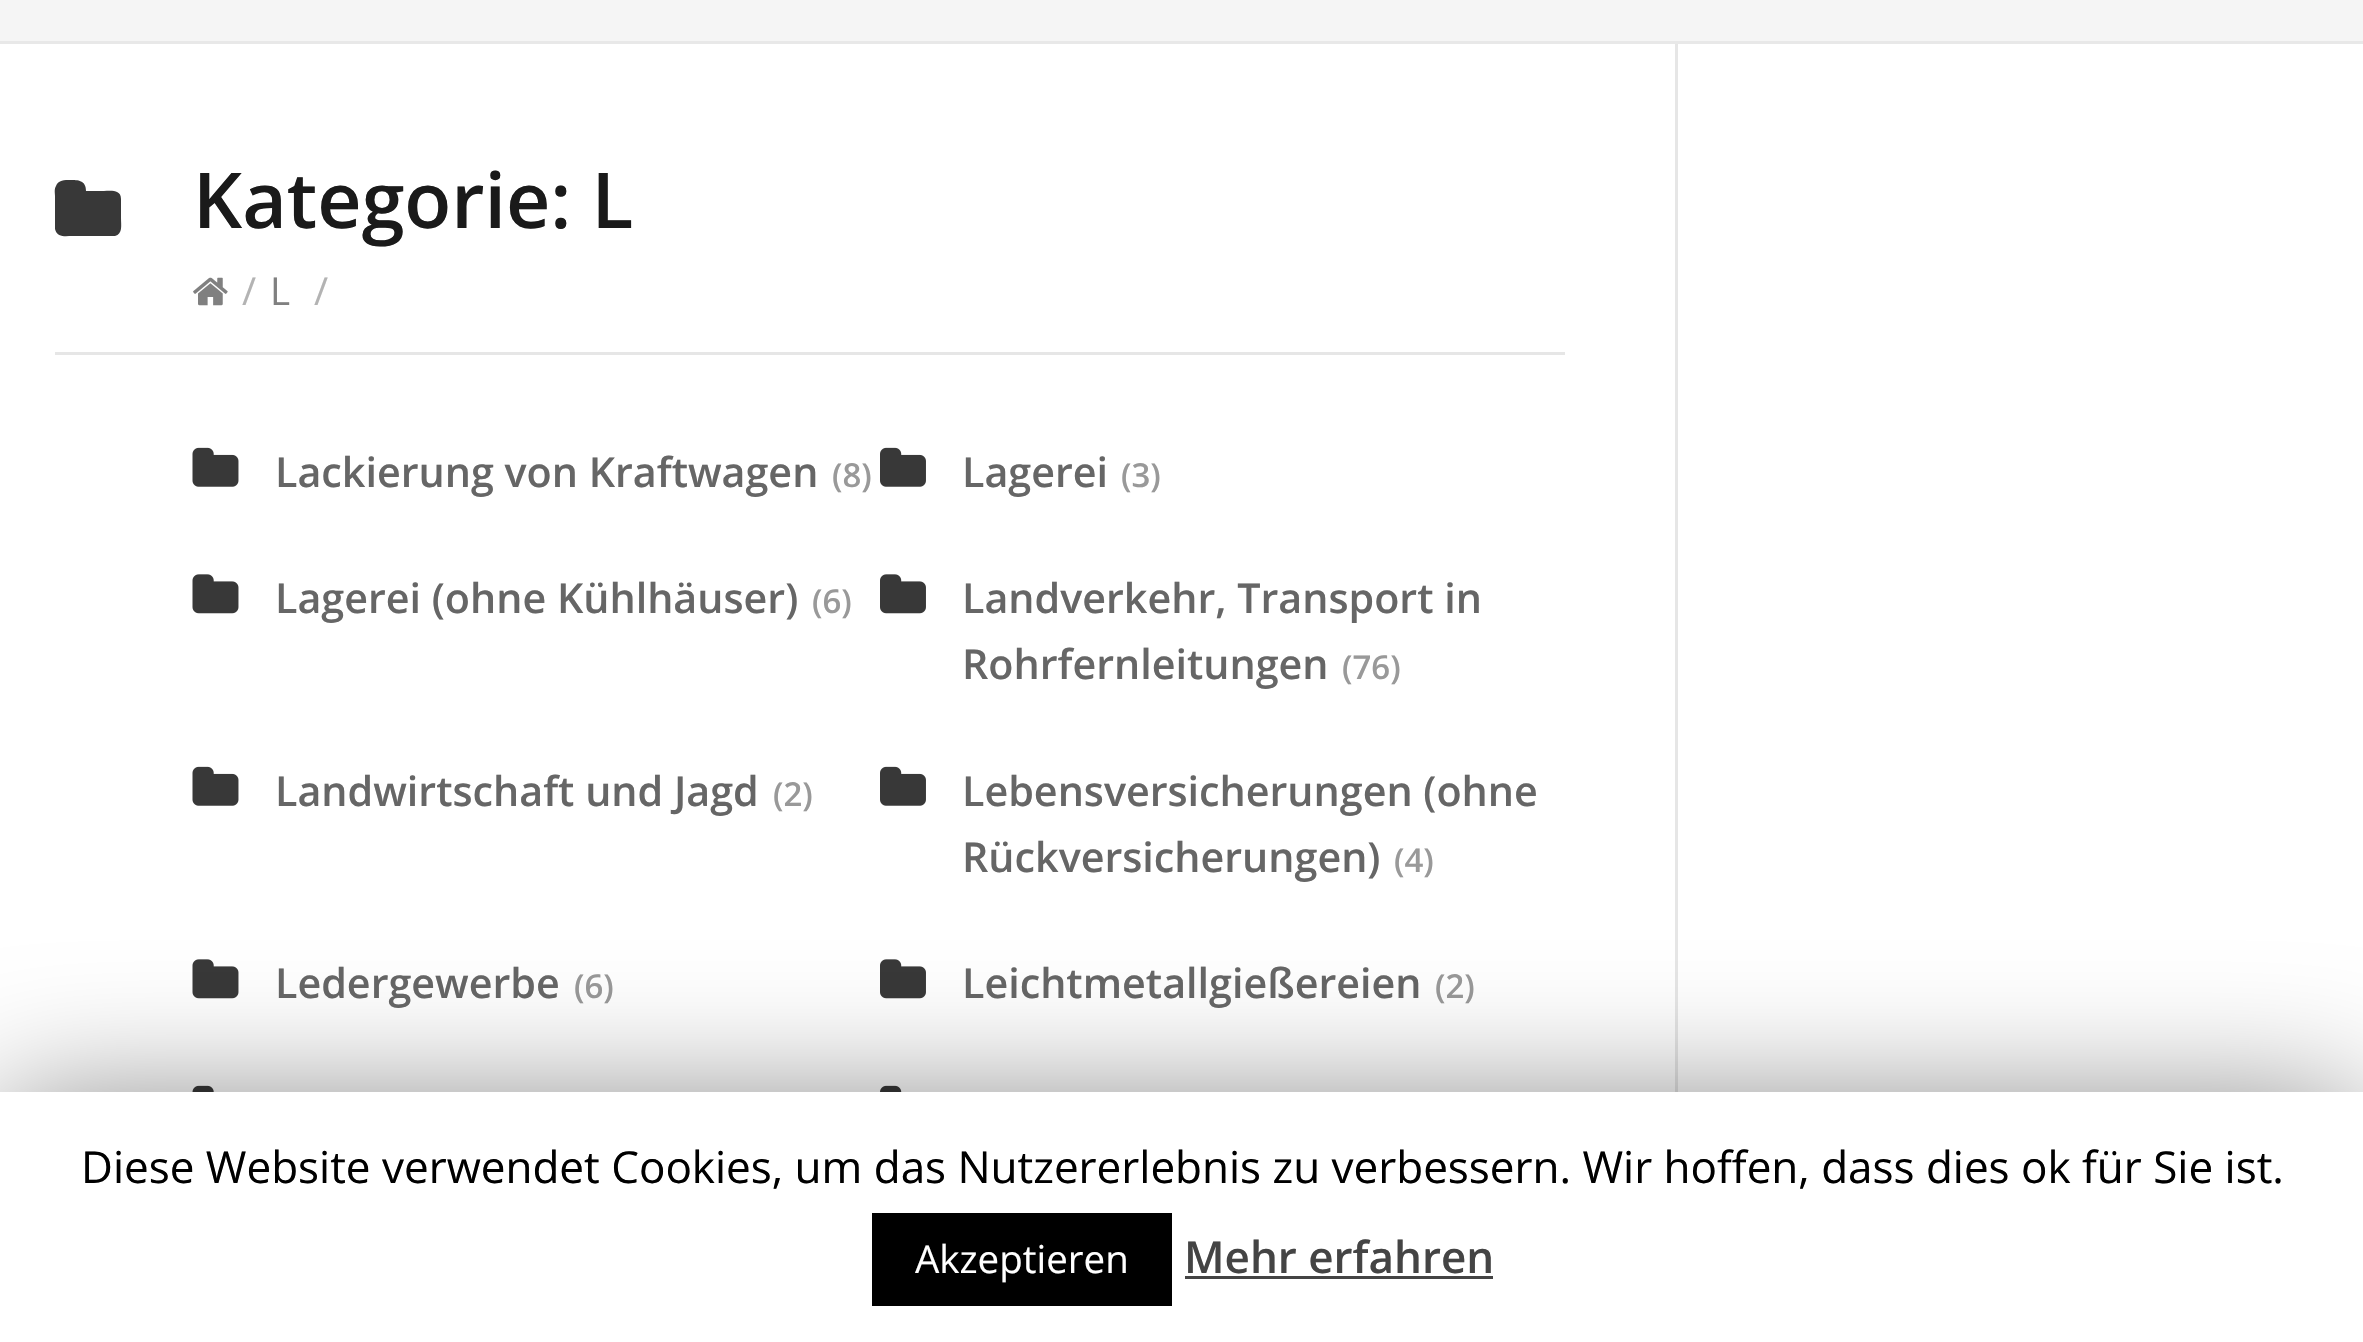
void draw(SkCanvas* canvas) {
    SkPaint paint;
    paint.setAntiAlias(true);
    auto face = [&](const char* family, int weight, float size, bool italic = false) {
        SkFontStyle style(weight, SkFontStyle::kNormal_Width,
            italic ? SkFontStyle::kItalic_Slant : SkFontStyle::kUpright_Slant);
        SkFont result(fontMgr->matchFamilyStyle(family, style), size);
        result.setSubpixel(true);
        return result;
    };
    auto write = [&](const char* s, float x, float y, const SkFont& font, SkColor color) {
        SkPaint ink(SkColor4f::FromColor(color));
        ink.setAntiAlias(true);
        canvas->drawString(s, x, y, font, ink);
    };
    auto block = [&](float x, float y, float w, float h, SkColor color) {
        SkPaint ink(SkColor4f::FromColor(color));
        ink.setAntiAlias(true);
        canvas->drawRect(SkRect::MakeXYWH(x, y, w, h), ink);
    };
    auto paste = [&](const char* path, float x, float y, float w, float h) {
        auto image = SkImages::DeferredFromEncodedData(SkData::MakeFromFileName(path));
        canvas->drawImageRect(image, SkRect::MakeXYWH(x, y, w, h), SkSamplingOptions());
    };
    canvas->clear(SK_ColorWHITE);
    block(0, 0, 2363, 41, SkColorSetRGB(245, 245, 245));
    block(0, 41, 2363, 3, SkColorSetRGB(232, 232, 232));
    block(1675, 44, 3, 1048, SkColorSetRGB(230, 230, 230));
    block(55, 352, 1510, 3, SkColorSetRGB(230, 230, 230));
    paint.setColor(SkColorSetRGB(56, 56, 56));
    canvas->drawPath(SkPathBuilder().moveTo(121, 199).lineTo(121, 218).cubicTo(121, 225, 123, 234, 115, 236).lineTo(72, 236).cubicTo(66, 236, 57, 238, 55, 229).lineTo(55, 196).cubicTo(55, 193, 54, 189, 56, 186).cubicTo(58, 180, 65, 180, 70, 180).cubicTo(78, 180, 86, 180, 86, 191).lineTo(104, 191).cubicTo(110, 191, 121, 189, 121, 199).close().detach(), paint);
    auto kFont1 = face("Open Sans", 600, 77);
    write("Kategorie: L", 193, 228, kFont1, SkColorSetRGB(26, 26, 26));
    paste("pic1.png", 193, 277, 35, 29);
    auto kFont2 = face("Open Sans", 400, 38.5f);
    write("/", 242, 305, kFont2, SkColorSetRGB(179, 179, 179));
    write("L", 270, 305, kFont2, SkColorSetRGB(128, 128, 128));
    write("/", 314, 305, kFont2, SkColorSetRGB(179, 179, 179));
    paste("pic2.png", 192, 447, 47, 40);
    auto kFont3 = face("Open Sans", 600, 41.25f);
    write("Lackierung von Kraftwagen", 275, 487, kFont3, SkColorSetRGB(102, 102, 102));
    auto kFont4 = face("Open Sans", 600, 33);
    write("(8)", 832, 487, kFont4, SkColorSetRGB(153, 153, 153));
    paste("pic3.png", 880, 447, 46, 40);
    write("Lagerei", 962, 487, kFont3, SkColorSetRGB(102, 102, 102));
    write("(3)", 1121, 487, kFont4, SkColorSetRGB(153, 153, 153));
    paste("pic4.png", 192, 574, 47, 40);
    write("Lagerei (ohne Kühlhäuser)", 275, 613, kFont3, SkColorSetRGB(102, 102, 102));
    write("(6)", 812, 613, kFont4, SkColorSetRGB(153, 153, 153));
    paste("pic5.png", 880, 574, 46, 40);
    write("Landverkehr, Transport in", 962, 613, kFont3, SkColorSetRGB(102, 102, 102));
    write("Rohrfernleitungen", 962, 679, kFont3, SkColorSetRGB(102, 102, 102));
    write("(76)", 1342, 679, kFont4, SkColorSetRGB(153, 153, 153));
    paste("pic2.png", 192, 766, 47, 40);
    write("Landwirtschaft und Jagd", 275, 806, kFont3, SkColorSetRGB(102, 102, 102));
    write("(2)", 773, 806, kFont4, SkColorSetRGB(153, 153, 153));
    paste("pic3.png", 880, 766, 46, 40);
    write("Lebensversicherungen (ohne", 962, 806, kFont3, SkColorSetRGB(102, 102, 102));
    write("Rückversicherungen)", 962, 872, kFont3, SkColorSetRGB(102, 102, 102));
    write("(4)", 1394, 872, kFont4, SkColorSetRGB(153, 153, 153));
    paste("pic4.png", 192, 959, 47, 40);
    write("Ledergewerbe", 275, 998, kFont3, SkColorSetRGB(102, 102, 102));
    write("(6)", 574, 998, kFont4, SkColorSetRGB(153, 153, 153));
    paste("pic5.png", 880, 959, 46, 40);
    write("Leichtmetallgießereien", 962, 998, kFont3, SkColorSetRGB(102, 102, 102));
    write("(2)", 1435, 998, kFont4, SkColorSetRGB(153, 153, 153));
    paste("pic6.png", 192, 1085, 22, 7);
    paste("pic7.png", 880, 1085, 22, 7);
    paint.setColor(SkColorSetARGB(128, 0, 0, 0));
    paint.setMaskFilter(SkMaskFilter::MakeBlur(kNormal_SkBlurStyle, 69));
    canvas->drawRect(SkRect::MakeXYWH(0, 1106, 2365, 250), paint);
    paint.setMaskFilter(nullptr);
    block(0, 1092, 2363, 250, SK_ColorWHITE);
    auto kFont5 = face("Open Sans", 400, 44);
    write("Diese Website verwendet Cookies, um das Nutzererlebnis zu verbessern. Wir hoffen, dass dies ok für Sie ist.", 81, 1183, kFont5, SK_ColorBLACK);
    block(872, 1213, 300, 93, SK_ColorBLACK);
    write("Akzeptieren", 915, 1273, kFont2, SK_ColorWHITE);
    auto kFont6 = face("Open Sans", 600, 44);
    write("Mehr erfahren", 1184, 1273, kFont6, SkColorSetRGB(68, 68, 68));
    block(1185, 1276, 308, 3, SkColorSetRGB(68, 68, 68));
}
